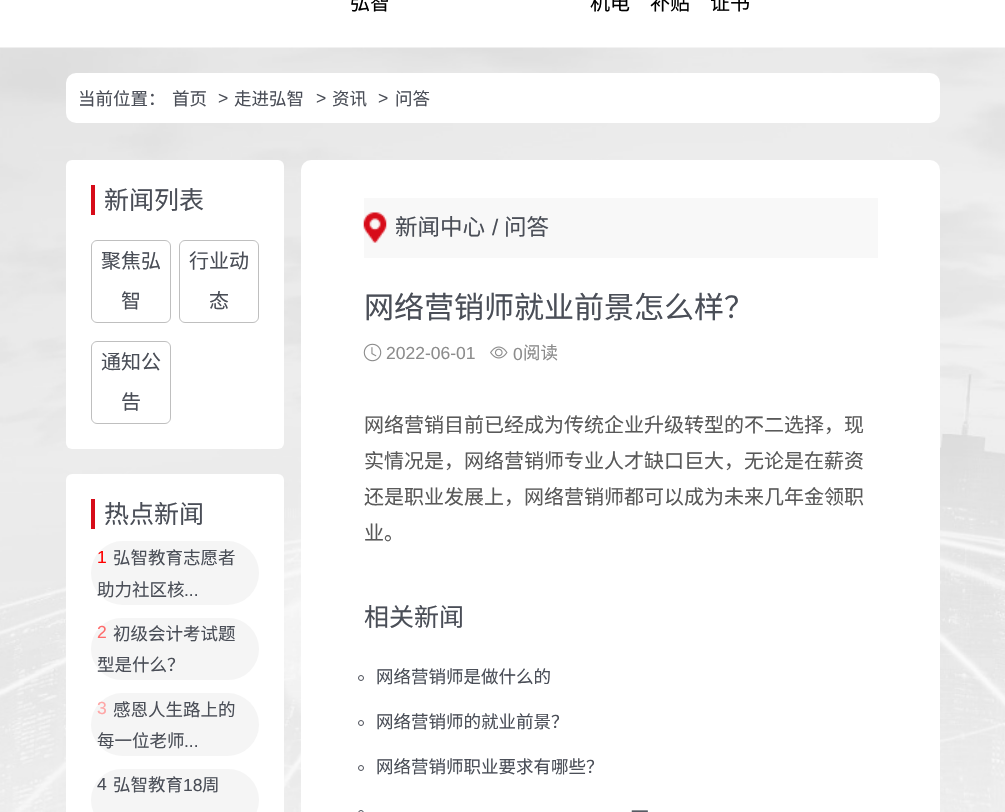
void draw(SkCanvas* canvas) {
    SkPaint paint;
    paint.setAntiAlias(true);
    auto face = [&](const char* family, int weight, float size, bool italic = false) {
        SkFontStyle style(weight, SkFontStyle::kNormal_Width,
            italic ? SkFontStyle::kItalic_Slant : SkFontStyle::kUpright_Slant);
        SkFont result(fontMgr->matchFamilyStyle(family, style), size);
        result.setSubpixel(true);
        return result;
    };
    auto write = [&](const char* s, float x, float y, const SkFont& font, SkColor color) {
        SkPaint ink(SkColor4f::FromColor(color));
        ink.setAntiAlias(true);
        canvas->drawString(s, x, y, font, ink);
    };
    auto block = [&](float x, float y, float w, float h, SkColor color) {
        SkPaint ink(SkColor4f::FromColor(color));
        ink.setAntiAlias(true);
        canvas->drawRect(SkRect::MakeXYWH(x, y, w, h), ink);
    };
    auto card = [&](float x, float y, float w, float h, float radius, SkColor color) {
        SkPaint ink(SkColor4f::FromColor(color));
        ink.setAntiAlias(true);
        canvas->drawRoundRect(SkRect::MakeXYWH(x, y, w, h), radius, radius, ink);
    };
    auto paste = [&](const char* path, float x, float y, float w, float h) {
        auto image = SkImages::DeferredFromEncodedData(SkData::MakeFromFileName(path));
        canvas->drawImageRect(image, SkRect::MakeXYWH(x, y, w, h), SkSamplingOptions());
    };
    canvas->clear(SK_ColorWHITE);
    auto kFont1 = face("Noto Sans CJK SC", 400, 20);
    write("弘智", 350, 10, kFont1, SK_ColorBLACK);
    write("机电", 590, 10, kFont1, SK_ColorBLACK);
    write("补贴", 650, 10, kFont1, SK_ColorBLACK);
    write("证书", 710, 10, kFont1, SK_ColorBLACK);
    paste("pic1.png", 0, 47, 1005, 765);
    card(66, 73, 874, 50, 10, SK_ColorWHITE);
    auto kFont2 = face("Noto Sans CJK SC", 400, 17.5f);
    write("当前位置：", 78, 105, kFont2, SkColorSetRGB(74, 78, 87));
    write("首页", 172, 105, kFont2, SkColorSetRGB(74, 78, 87));
    auto kFont3 = face("Liberation Sans", 400, 17.5f);
    write(">", 218, 104, kFont3, SkColorSetRGB(74, 78, 87));
    write("走进弘智", 234, 105, kFont2, SkColorSetRGB(74, 78, 87));
    write(">", 316, 104, kFont3, SkColorSetRGB(74, 78, 87));
    write("资讯", 332, 105, kFont2, SkColorSetRGB(74, 78, 87));
    write(">", 378, 104, kFont3, SkColorSetRGB(74, 78, 87));
    write("问答", 395, 105, kFont2, SkColorSetRGB(74, 78, 87));
    card(66, 160, 218, 289, 6, SK_ColorWHITE);
    block(91, 185, 4, 30, SkColorSetRGB(215, 12, 25));
    auto kFont4 = face("Noto Sans CJK SC", 400, 25);
    write("新闻列表", 104, 209, kFont4, SkColorSetRGB(74, 78, 87));
    paint.setStyle(SkPaint::kStroke_Style);
    paint.setStrokeWidth(1);
    paint.setColor(SkColorSetRGB(191, 191, 191));
    canvas->drawRoundRect(SkRect::MakeXYWH(91.5f, 240.5f, 79, 82), 5.5f, 5.5f, paint);
    write("聚焦弘", 101, 268, kFont1, SkColorSetRGB(74, 78, 87));
    write("智", 121, 308, kFont1, SkColorSetRGB(74, 78, 87));
    canvas->drawRoundRect(SkRect::MakeXYWH(179.5f, 240.5f, 79, 82), 5.5f, 5.5f, paint);
    write("行业动", 189, 268, kFont1, SkColorSetRGB(74, 78, 87));
    write("态", 209, 308, kFont1, SkColorSetRGB(74, 78, 87));
    canvas->drawRoundRect(SkRect::MakeXYWH(91.5f, 341.5f, 79, 82), 5.5f, 5.5f, paint);
    write("通知公", 101, 369, kFont1, SkColorSetRGB(74, 78, 87));
    write("告", 121, 409, kFont1, SkColorSetRGB(74, 78, 87));
    card(66, 474, 218, 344, 6, SK_ColorWHITE);
    block(91, 499, 4, 30, SkColorSetRGB(215, 12, 25));
    write("热点新闻", 104, 523, kFont4, SkColorSetRGB(74, 78, 87));
    card(91, 541, 168, 64, 32, SkColorSetRGB(245, 245, 245));
    write("1", 97, 563, kFont3, SkColorSetRGB(255, 0, 0));
    write("弘智教育志愿者", 113, 564, kFont2, SkColorSetRGB(74, 78, 87));
    write("助力社区核", 97, 596, kFont2, SkColorSetRGB(74, 78, 87));
    write("...", 184, 596, kFont3, SkColorSetRGB(74, 78, 87));
    card(91, 618, 168, 62, 31, SkColorSetRGB(245, 245, 245));
    write("2", 97, 638, kFont3, SkColorSetRGB(255, 107, 107));
    write("初级会计考试题", 113, 640, kFont2, SkColorSetRGB(74, 78, 87));
    write("型是什么？", 97, 671, kFont2, SkColorSetRGB(74, 78, 87));
    card(91, 693, 168, 63, 31.5f, SkColorSetRGB(245, 245, 245));
    write("3", 97, 714, kFont3, SkColorSetRGB(255, 166, 166));
    write("感恩人生路上的", 113, 716, kFont2, SkColorSetRGB(74, 78, 87));
    write("每一位老师", 97, 747, kFont2, SkColorSetRGB(74, 78, 87));
    write("...", 184, 747, kFont3, SkColorSetRGB(74, 78, 87));
    card(91, 769, 168, 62, 31, SkColorSetRGB(245, 245, 245));
    write("4", 97, 790, kFont3, SkColorSetRGB(74, 78, 87));
    write("弘智教育", 113, 791, kFont2, SkColorSetRGB(74, 78, 87));
    write("18", 183, 791, kFont3, SkColorSetRGB(74, 78, 87));
    write("周", 202, 791, kFont2, SkColorSetRGB(74, 78, 87));
    card(301, 160, 639, 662, 10, SK_ColorWHITE);
    block(364, 198, 514, 60, SkColorSetRGB(248, 248, 248));
    paste("pic2.png", 363, 212, 24, 31);
    auto kFont5 = face("Noto Sans CJK SC", 400, 22.5f);
    write("新闻中心", 395, 235, kFont5, SkColorSetRGB(74, 78, 87));
    auto kFont6 = face("Liberation Sans", 400, 22.5f);
    write("/", 492, 235, kFont6, SkColorSetRGB(74, 78, 87));
    write("问答", 504, 235, kFont5, SkColorSetRGB(74, 78, 87));
    auto kFont7 = face("Noto Sans CJK SC", 400, 30);
    write("网络营销师就业前景怎么样？", 364, 318, kFont7, SkColorSetRGB(74, 78, 87));
    paste("pic3.png", 363, 343, 19, 19);
    write("2022-06-01", 386, 359, kFont3, SkColorSetRGB(140, 140, 140));
    paste("pic4.png", 490, 346, 18, 13);
    write("0", 513, 360, kFont3, SkColorSetRGB(140, 140, 140));
    write("阅读", 523, 359, kFont2, SkColorSetRGB(140, 140, 140));
    write("网络营销目前已经成为传统企业升级转型的不二选择，现", 364, 432, kFont1, SkColorSetRGB(89, 89, 89));
    write("实情况是，网络营销师专业人才缺口巨大，无论是在薪资", 364, 468, kFont1, SkColorSetRGB(89, 89, 89));
    write("还是职业发展上，网络营销师都可以成为未来几年金领职", 364, 504, kFont1, SkColorSetRGB(89, 89, 89));
    write("业。", 364, 540, kFont1, SkColorSetRGB(89, 89, 89));
    write("相关新闻", 364, 626, kFont4, SkColorSetRGB(74, 78, 87));
    paint.setColor(SkColorSetRGB(74, 78, 87));
    canvas->drawCircle(361, 678, 2.5f, paint);
    write("网络营销师是做什么的", 376, 683, kFont2, SkColorSetRGB(74, 78, 87));
    canvas->drawCircle(361, 723, 2.5f, paint);
    write("网络营销师的就业前景？", 376, 728, kFont2, SkColorSetRGB(74, 78, 87));
    canvas->drawCircle(361, 768, 2.5f, paint);
    write("网络营销师职业要求有哪些？", 376, 773, kFont2, SkColorSetRGB(74, 78, 87));
    canvas->drawCircle(361, 813, 2.5f, paint);
    write("一", 631, 818, kFont2, SkColorSetRGB(74, 78, 87));
}
